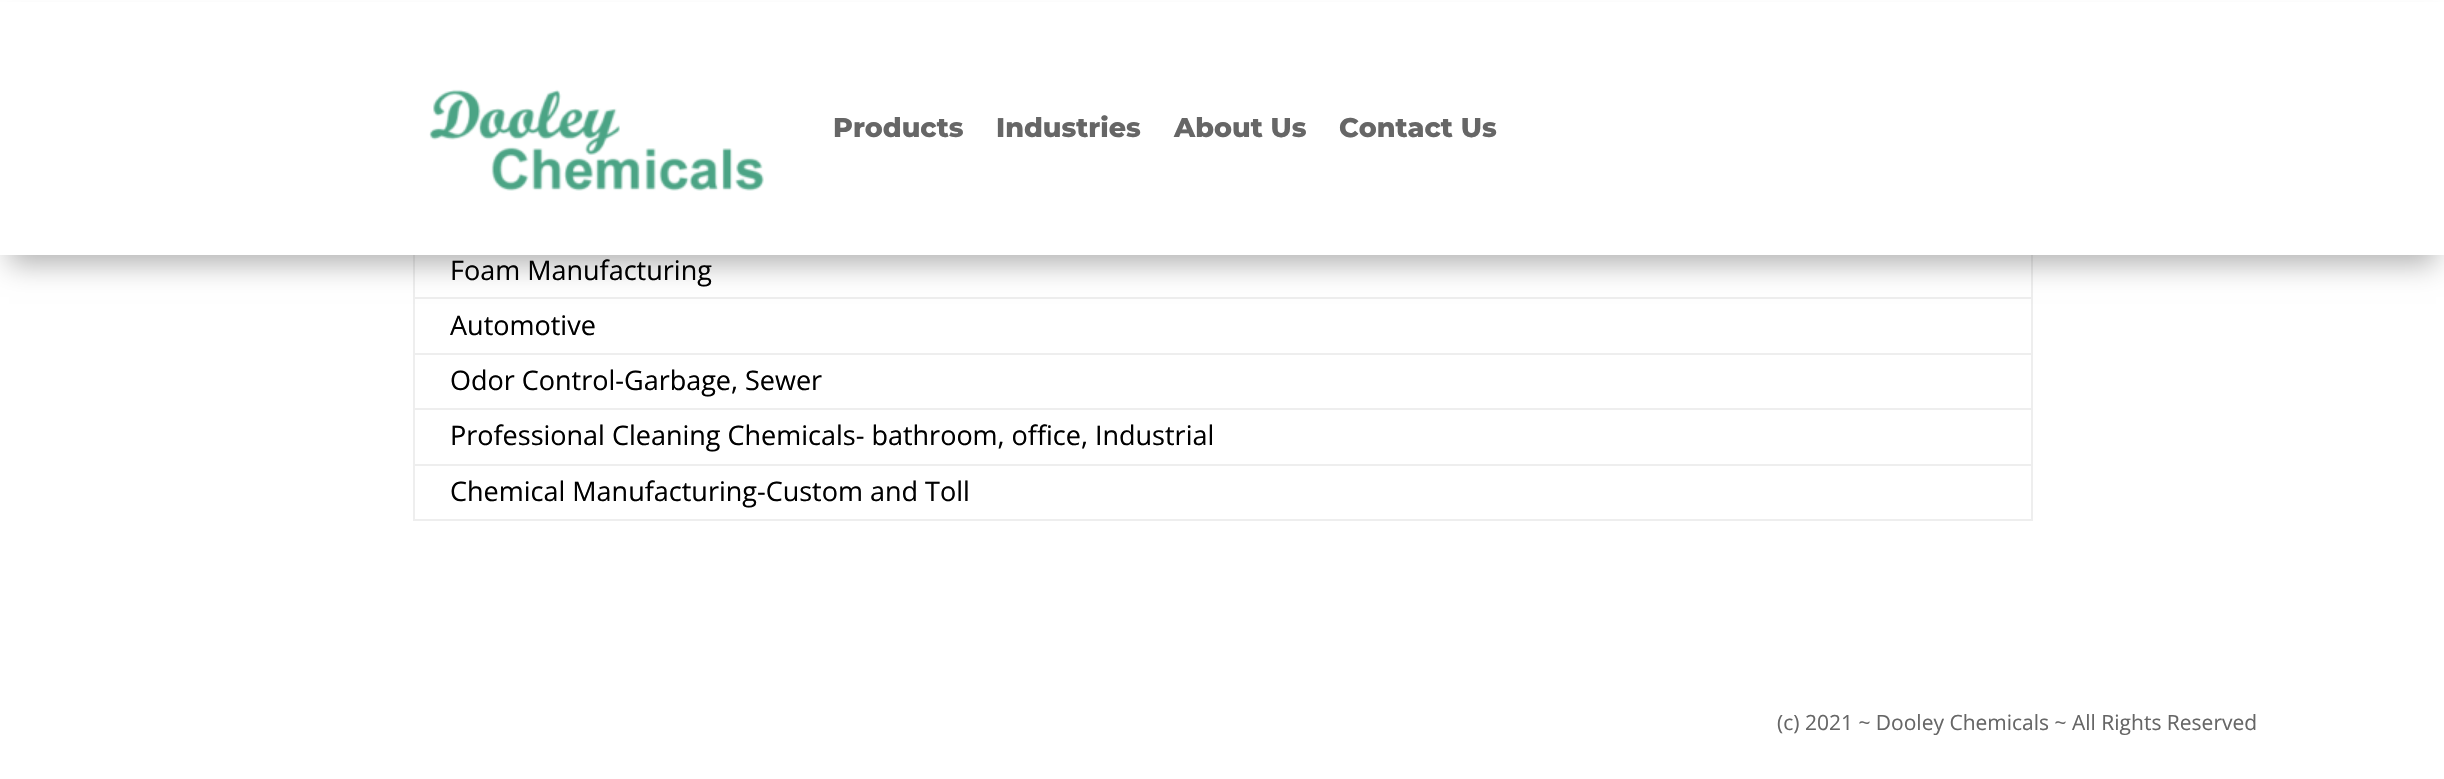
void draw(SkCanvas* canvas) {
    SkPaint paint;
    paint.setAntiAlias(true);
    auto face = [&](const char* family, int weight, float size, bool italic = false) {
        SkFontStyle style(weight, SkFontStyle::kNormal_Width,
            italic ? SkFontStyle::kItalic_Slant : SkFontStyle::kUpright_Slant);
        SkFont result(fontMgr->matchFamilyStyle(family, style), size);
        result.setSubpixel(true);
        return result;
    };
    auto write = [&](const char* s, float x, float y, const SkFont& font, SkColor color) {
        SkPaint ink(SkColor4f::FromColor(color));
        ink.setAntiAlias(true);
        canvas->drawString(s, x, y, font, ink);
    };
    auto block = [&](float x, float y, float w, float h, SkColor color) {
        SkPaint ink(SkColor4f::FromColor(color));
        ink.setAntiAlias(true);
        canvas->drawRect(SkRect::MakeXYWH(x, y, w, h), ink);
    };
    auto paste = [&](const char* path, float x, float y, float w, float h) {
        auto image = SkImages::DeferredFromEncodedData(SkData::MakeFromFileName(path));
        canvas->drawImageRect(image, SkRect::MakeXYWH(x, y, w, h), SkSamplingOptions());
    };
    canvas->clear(SK_ColorWHITE);
    block(2031, 255, 2, 266, SkColorSetRGB(238, 238, 238));
    block(413, 519, 1620, 2, SkColorSetRGB(238, 238, 238));
    block(413, 255, 2, 266, SkColorSetRGB(238, 238, 238));
    block(413, 297, 1620, 2, SkColorSetRGB(238, 238, 238));
    paint.setColor(SkColorSetARGB(77, 0, 0, 0));
    paint.setMaskFilter(SkMaskFilter::MakeBlur(kNormal_SkBlurStyle, 13.5f));
    canvas->drawRect(SkRect::MakeXYWH(9, 27, 2427, 237), paint);
    paint.setMaskFilter(nullptr);
    block(0, 2, 2444, 253, SK_ColorWHITE);
    paste("pic1.png", 429, 89, 335, 102);
    auto kFont1 = face("Montserrat", 100, 27);
    write("Products", 833, 137, kFont1, SkColorSetRGB(102, 102, 102));
    write("Industries", 996, 137, kFont1, SkColorSetRGB(102, 102, 102));
    write("About Us", 1174, 137, kFont1, SkColorSetRGB(102, 102, 102));
    write("Contact Us", 1339, 137, kFont1, SkColorSetRGB(102, 102, 102));
    auto kFont2 = face("Open Sans", 400, 27);
    write("Foam Manufacturing", 450, 280, kFont2, SK_ColorBLACK);
    write("Automotive", 450, 335, kFont2, SK_ColorBLACK);
    block(413, 353, 1620, 2, SkColorSetRGB(238, 238, 238));
    write("Odor Control-Garbage, Sewer", 450, 390, kFont2, SK_ColorBLACK);
    block(413, 408, 1620, 2, SkColorSetRGB(238, 238, 238));
    write("Professional Cleaning Chemicals- bathroom, office, Industrial", 450, 445, kFont2, SK_ColorBLACK);
    block(413, 464, 1620, 2, SkColorSetRGB(238, 238, 238));
    write("Chemical Manufacturing-Custom and Toll", 450, 501, kFont2, SK_ColorBLACK);
    auto kFont3 = face("Open Sans", 400, 21);
    write("(c) 2021 ~ Dooley Chemicals ~ All Rights Reserved", 1777, 730, kFont3, SkColorSetRGB(102, 102, 102));
}
